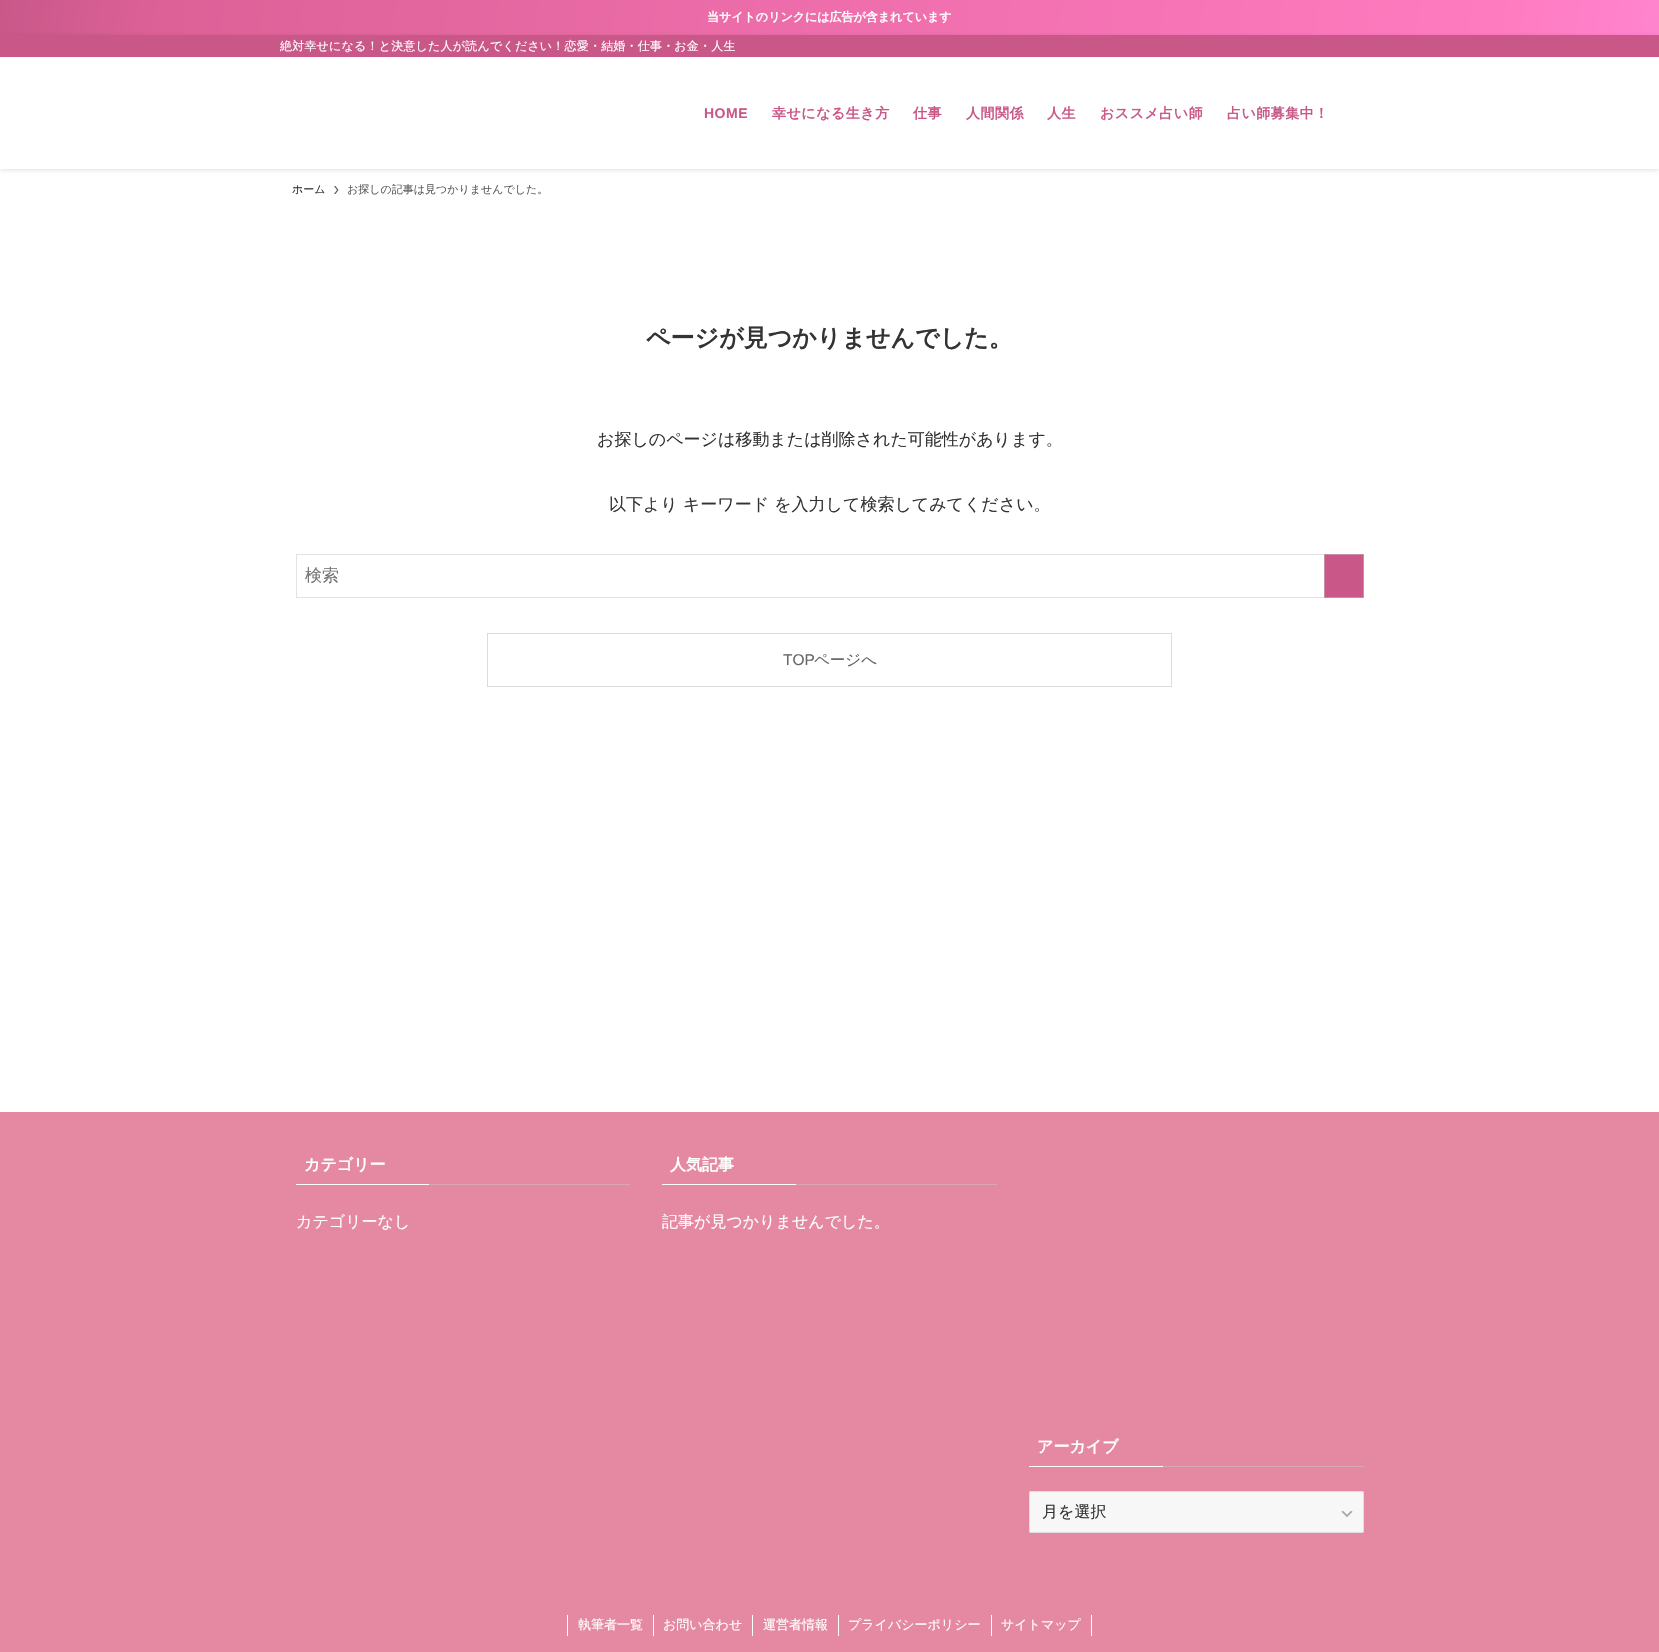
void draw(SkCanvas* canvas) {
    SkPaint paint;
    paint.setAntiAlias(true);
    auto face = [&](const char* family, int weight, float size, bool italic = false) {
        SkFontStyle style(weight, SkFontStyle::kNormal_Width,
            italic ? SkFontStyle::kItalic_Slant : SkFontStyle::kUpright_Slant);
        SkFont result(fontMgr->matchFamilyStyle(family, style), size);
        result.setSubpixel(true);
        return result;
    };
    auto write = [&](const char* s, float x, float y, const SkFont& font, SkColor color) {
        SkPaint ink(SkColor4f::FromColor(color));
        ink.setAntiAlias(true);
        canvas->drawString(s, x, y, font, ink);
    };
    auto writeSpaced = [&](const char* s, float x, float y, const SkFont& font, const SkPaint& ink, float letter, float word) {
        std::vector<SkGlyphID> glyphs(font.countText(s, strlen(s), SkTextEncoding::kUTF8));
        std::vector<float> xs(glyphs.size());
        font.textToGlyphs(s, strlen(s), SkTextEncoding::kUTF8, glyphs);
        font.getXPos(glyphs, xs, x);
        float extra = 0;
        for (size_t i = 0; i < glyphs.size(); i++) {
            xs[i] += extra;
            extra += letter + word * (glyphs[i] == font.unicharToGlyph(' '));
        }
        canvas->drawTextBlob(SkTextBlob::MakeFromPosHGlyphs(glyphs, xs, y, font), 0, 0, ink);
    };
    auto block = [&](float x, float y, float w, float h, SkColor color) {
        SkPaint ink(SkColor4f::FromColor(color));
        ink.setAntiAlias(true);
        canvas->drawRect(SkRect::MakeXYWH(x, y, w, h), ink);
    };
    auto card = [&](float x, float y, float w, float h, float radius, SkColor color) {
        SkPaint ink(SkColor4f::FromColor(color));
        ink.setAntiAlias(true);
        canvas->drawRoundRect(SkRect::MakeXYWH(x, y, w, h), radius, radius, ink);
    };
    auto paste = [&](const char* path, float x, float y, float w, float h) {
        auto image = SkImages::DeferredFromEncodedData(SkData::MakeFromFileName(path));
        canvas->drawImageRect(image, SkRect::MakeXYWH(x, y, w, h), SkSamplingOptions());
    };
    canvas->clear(SK_ColorWHITE);
    {
        const SkColor colors[] = {SkColorSetRGB(201, 88, 137), SkColorSetRGB(221, 97, 151), SkColorSetRGB(255, 123, 192), SkColorSetRGB(255, 132, 206)};
        const float stops[] = {0, 0.1f, 0.9f, 1};
        const SkPoint ends[] = {{22, -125}, {1637, 160}};
        paint.setShader(SkGradientShader::MakeLinear(ends, colors, stops, 4, SkTileMode::kClamp));
        paint.setAlpha(255);
    }
    canvas->drawRect(SkRect::MakeXYWH(0, 0, 1659, 35), paint);
    auto kFont1 = face("WenQuanYi Zen Hei", 700, 12);
    write("当サイトのリンクには広告が含まれています", 707, 21, kFont1, SK_ColorWHITE);
    canvas->save();
    canvas->clipPath(SkPathBuilder(SkPathFillType::kEvenOdd).moveTo(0, 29).lineTo(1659, 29).lineTo(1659, 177).lineTo(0, 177).close().moveTo(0, 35).lineTo(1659, 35).lineTo(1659, 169).lineTo(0, 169).close().detach(), true);
    paint.setShader(nullptr);
    paint.setColor(SkColorSetARGB(31, 0, 0, 0));
    paint.setMaskFilter(SkMaskFilter::MakeBlur(kNormal_SkBlurStyle, 2));
    canvas->drawRect(SkRect::MakeXYWH(0, 36, 1659, 134), paint);
    paint.setMaskFilter(nullptr);
    canvas->restore();
    block(0, 35, 1659, 22, SkColorSetRGB(201, 88, 137));
    canvas->save();
    canvas->clipRect(SkRect::MakeXYWH(280, 35, 550, 22));
    auto kFont2 = face("WenQuanYi Zen Hei", 500, 12);
    paint.setColor(SK_ColorWHITE);
    writeSpaced("絶対幸せになる！と決意した人が読んでください！恋愛・結婚・仕事・お金・人生", 280, 50, kFont2, paint, 0.2f, 0);
    canvas->restore();
    auto kFont3 = face("Liberation Sans", 700, 14);
    paint.setColor(SkColorSetRGB(201, 88, 137));
    writeSpaced("HOME", 704, 118, kFont3, paint, 0.5f, 0);
    auto kFont4 = face("WenQuanYi Zen Hei", 700, 14);
    writeSpaced("幸せになる生き方", 772, 118, kFont4, paint, 0.5f, 0);
    writeSpaced("仕事", 913, 118, kFont4, paint, 0.5f, 0);
    writeSpaced("人間関係", 966, 118, kFont4, paint, 0.5f, 0);
    writeSpaced("人生", 1047, 118, kFont4, paint, 0.5f, 0);
    writeSpaced("おススメ占い師", 1100, 118, kFont4, paint, 0.5f, 0);
    writeSpaced("占い師募集中！", 1227, 118, kFont4, paint, 0.5f, 0);
    auto kFont5 = face("WenQuanYi Zen Hei", 500, 11);
    write("ホーム", 292, 193, kFont5, SkColorSetRGB(51, 51, 51));
    paint.setColor(SkColorSetRGB(92, 92, 92));
    canvas->drawPath(SkPathBuilder().moveTo(335.5f, 186).lineTo(334, 186).lineTo(337, 190).lineTo(334, 194).lineTo(335.5f, 194).lineTo(338.5f, 190).close().detach(), paint);
    write("お探しの記事は見つかりませんでした。", 347, 193, kFont5, SkColorSetRGB(92, 92, 92));
    auto kFont6 = face("WenQuanYi Zen Hei", 700, 24);
    write("ページが見つかりませんでした。", 646, 346, kFont6, SkColorSetRGB(51, 51, 51));
    auto kFont7 = face("WenQuanYi Zen Hei", 500, 17);
    write("お探しのページは移動または削除された可能性があります。", 597, 445, kFont7, SkColorSetRGB(51, 51, 51));
    write("以下より キーワード を入力して検索してみてください。", 609, 510, kFont7, SkColorSetRGB(51, 51, 51));
    paint.setStyle(SkPaint::kStroke_Style);
    paint.setStrokeWidth(1);
    paint.setColor(SkColorSetRGB(227, 227, 227));
    canvas->drawRect(SkRect::MakeXYWH(296.5f, 554.5f, 1067, 43), paint);
    write("検索", 305, 581, kFont7, SkColorSetRGB(117, 117, 117));
    paint.setStyle(SkPaint::kFill_Style);
    paint.setColor(SkColorSetRGB(201, 88, 137));
    canvas->drawRect(SkRect::MakeXYWH(1324.5f, 554.5f, 39, 43), paint);
    paint.setStyle(SkPaint::kStroke_Style);
    paint.setColor(SkColorSetRGB(200, 144, 168));
    canvas->drawRect(SkRect::MakeXYWH(1324.5f, 554.5f, 39, 43), paint);
    paint.setColor(SkColorSetRGB(220, 220, 220));
    canvas->drawRect(SkRect::MakeXYWH(487.5f, 633.5f, 684, 53), paint);
    auto kFont8 = face("Liberation Sans", 400, 15.5f);
    write("TOP", 783, 665, kFont8, SkColorSetRGB(102, 102, 102));
    auto kFont9 = face("WenQuanYi Zen Hei", 500, 15.5f);
    write("ページへ", 814, 665, kFont9, SkColorSetRGB(102, 102, 102));
    block(0, 1112, 1659, 540, SkColorSetRGB(229, 137, 162));
    auto kFont10 = face("WenQuanYi Zen Hei", 700, 16);
    write("カテゴリー", 304, 1170, kFont10, SK_ColorWHITE);
    block(296, 1184, 133, 1, SK_ColorWHITE);
    block(429, 1184, 201, 1, SkColorSetRGB(214, 168, 181));
    auto kFont11 = face("WenQuanYi Zen Hei", 500, 16);
    write("カテゴリーなし", 296, 1227, kFont11, SK_ColorWHITE);
    write("人気記事", 670, 1170, kFont10, SK_ColorWHITE);
    block(662, 1184, 134, 1, SK_ColorWHITE);
    block(796, 1184, 201, 1, SkColorSetRGB(214, 168, 181));
    write("記事が見つかりませんでした。", 662, 1227, kFont11, SK_ColorWHITE);
    write("アーカイブ", 1037, 1452, kFont10, SK_ColorWHITE);
    block(1029, 1466, 134, 1, SK_ColorWHITE);
    block(1163, 1466, 201, 1, SkColorSetRGB(214, 168, 181));
    card(1029, 1491, 335, 42, 2, SkColorSetRGB(247, 247, 247));
    paste("pic1.png", 1341, 1511, 12, 6);
    paint.setColor(SkColorSetARGB(128, 199, 199, 199));
    canvas->drawRoundRect(SkRect::MakeXYWH(1029.5f, 1491.5f, 334, 41), 1.5f, 1.5f, paint);
    write("月を選択", 1042, 1517, kFont11, SkColorSetRGB(51, 51, 51));
    block(653, 1615, 1, 21, SK_ColorWHITE);
    block(567, 1615, 1, 21, SK_ColorWHITE);
    auto kFont12 = face("WenQuanYi Zen Hei", 500, 13);
    write("執筆者一覧", 578, 1629, kFont12, SK_ColorWHITE);
    block(752, 1615, 1, 21, SK_ColorWHITE);
    write("お問い合わせ", 663, 1629, kFont12, SK_ColorWHITE);
    block(838, 1615, 1, 21, SK_ColorWHITE);
    write("運営者情報", 763, 1629, kFont12, SK_ColorWHITE);
    block(991, 1615, 1, 21, SK_ColorWHITE);
    write("プライバシーポリシー", 848, 1629, kFont12, SK_ColorWHITE);
    block(1091, 1615, 1, 21, SK_ColorWHITE);
    write("サイトマップ", 1001, 1629, kFont12, SK_ColorWHITE);
}
